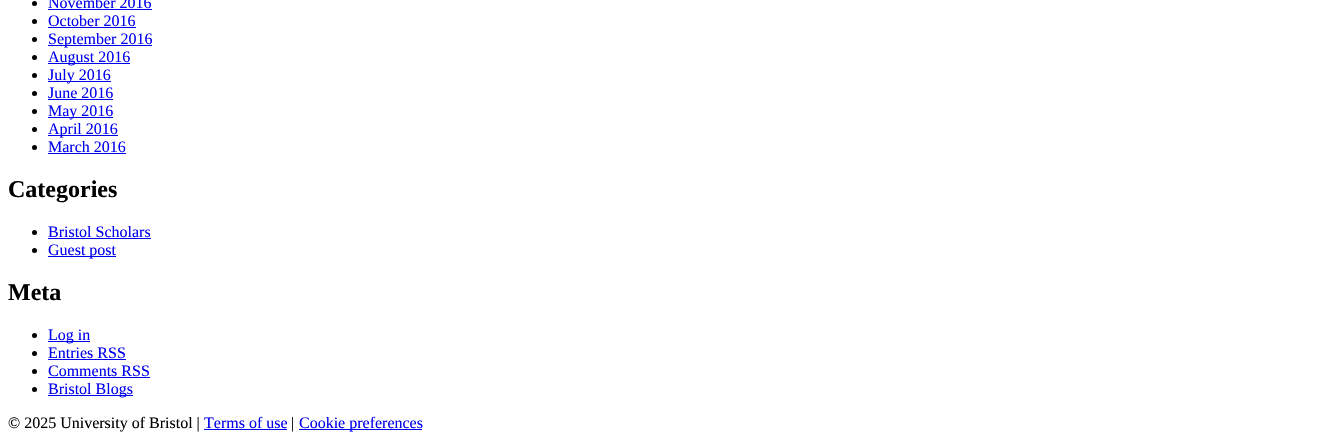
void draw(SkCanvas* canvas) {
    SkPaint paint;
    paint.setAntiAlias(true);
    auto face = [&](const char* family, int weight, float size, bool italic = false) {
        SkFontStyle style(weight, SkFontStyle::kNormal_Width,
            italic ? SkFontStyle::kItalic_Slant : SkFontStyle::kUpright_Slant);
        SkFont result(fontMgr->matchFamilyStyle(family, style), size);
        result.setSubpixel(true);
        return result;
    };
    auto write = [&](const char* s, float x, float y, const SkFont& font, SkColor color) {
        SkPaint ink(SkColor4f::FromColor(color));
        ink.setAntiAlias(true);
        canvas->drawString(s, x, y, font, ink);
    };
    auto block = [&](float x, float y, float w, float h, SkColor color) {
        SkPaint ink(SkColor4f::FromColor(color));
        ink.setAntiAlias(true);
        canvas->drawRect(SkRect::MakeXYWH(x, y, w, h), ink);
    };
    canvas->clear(SK_ColorWHITE);
    paint.setColor(SK_ColorBLACK);
    canvas->drawCircle(34.5f, 3.5f, 2.5f, paint);
    auto kFont1 = face("Liberation Serif", 400, 16);
    write("November 2016", 48, 8, kFont1, SkColorSetRGB(0, 0, 238));
    block(48, 9, 104, 1, SkColorSetRGB(0, 0, 238));
    canvas->drawCircle(34.5f, 21.5f, 2.5f, paint);
    write("October 2016", 48, 26, kFont1, SkColorSetRGB(0, 0, 238));
    block(48, 27, 88, 1, SkColorSetRGB(0, 0, 238));
    canvas->drawCircle(34.5f, 39.5f, 2.5f, paint);
    block(48, 45, 104, 1, SkColorSetRGB(0, 0, 238));
    write("September 2016", 48, 44, kFont1, SkColorSetRGB(0, 0, 238));
    canvas->drawCircle(34.5f, 57.5f, 2.5f, paint);
    block(48, 63, 82, 1, SkColorSetRGB(0, 0, 238));
    write("August 2016", 48, 62, kFont1, SkColorSetRGB(0, 0, 238));
    canvas->drawCircle(34.5f, 75.5f, 2.5f, paint);
    block(48, 81, 63, 1, SkColorSetRGB(0, 0, 238));
    write("July 2016", 48, 80, kFont1, SkColorSetRGB(0, 0, 238));
    canvas->drawCircle(34.5f, 93.5f, 2.5f, paint);
    write("June 2016", 48, 98, kFont1, SkColorSetRGB(0, 0, 238));
    block(48, 99, 65, 1, SkColorSetRGB(0, 0, 238));
    canvas->drawCircle(34.5f, 111.5f, 2.5f, paint);
    block(48, 117, 65, 1, SkColorSetRGB(0, 0, 238));
    write("May 2016", 48, 116, kFont1, SkColorSetRGB(0, 0, 238));
    canvas->drawCircle(34.5f, 129.5f, 2.5f, paint);
    block(48, 135, 70, 1, SkColorSetRGB(0, 0, 238));
    write("April 2016", 48, 134, kFont1, SkColorSetRGB(0, 0, 238));
    canvas->drawCircle(34.5f, 147.5f, 2.5f, paint);
    write("March 2016", 48, 152, kFont1, SkColorSetRGB(0, 0, 238));
    block(48, 153, 78, 1, SkColorSetRGB(0, 0, 238));
    auto kFont2 = face("Liberation Serif", 700, 24);
    write("Categories", 8, 197, kFont2, SK_ColorBLACK);
    canvas->drawCircle(34.5f, 232.5f, 2.5f, paint);
    write("Bristol Scholars", 48, 237, kFont1, SkColorSetRGB(0, 0, 238));
    block(48, 238, 103, 1, SkColorSetRGB(0, 0, 238));
    canvas->drawCircle(34.5f, 250.5f, 2.5f, paint);
    block(48, 256, 68, 1, SkColorSetRGB(0, 0, 238));
    write("Guest post", 48, 255, kFont1, SkColorSetRGB(0, 0, 238));
    write("Meta", 8, 300, kFont2, SK_ColorBLACK);
    canvas->drawCircle(34.5f, 335.5f, 2.5f, paint);
    block(48, 341, 42, 1, SkColorSetRGB(0, 0, 238));
    write("Log in", 48, 340, kFont1, SkColorSetRGB(0, 0, 238));
    canvas->drawCircle(34.5f, 353.5f, 2.5f, paint);
    write("Entries RSS", 48, 358, kFont1, SkColorSetRGB(0, 0, 238));
    block(48, 359, 78, 1, SkColorSetRGB(0, 0, 238));
    canvas->drawCircle(34.5f, 371.5f, 2.5f, paint);
    write("Comments RSS", 48, 376, kFont1, SkColorSetRGB(0, 0, 238));
    block(48, 377, 102, 1, SkColorSetRGB(0, 0, 238));
    canvas->drawCircle(34.5f, 389.5f, 2.5f, paint);
    block(48, 395, 85, 1, SkColorSetRGB(0, 0, 238));
    write("Bristol Blogs", 48, 394, kFont1, SkColorSetRGB(0, 0, 238));
    write("© 2025 University of Bristol |", 8, 428, kFont1, SK_ColorBLACK);
    write("Terms of use", 204, 428, kFont1, SkColorSetRGB(0, 0, 238));
    block(204, 429, 83, 1, SkColorSetRGB(0, 0, 238));
    write("|", 291, 428, kFont1, SK_ColorBLACK);
    block(299, 429, 123, 1, SkColorSetRGB(0, 0, 238));
    write("Cookie preferences", 299, 428, kFont1, SkColorSetRGB(0, 0, 238));
}
